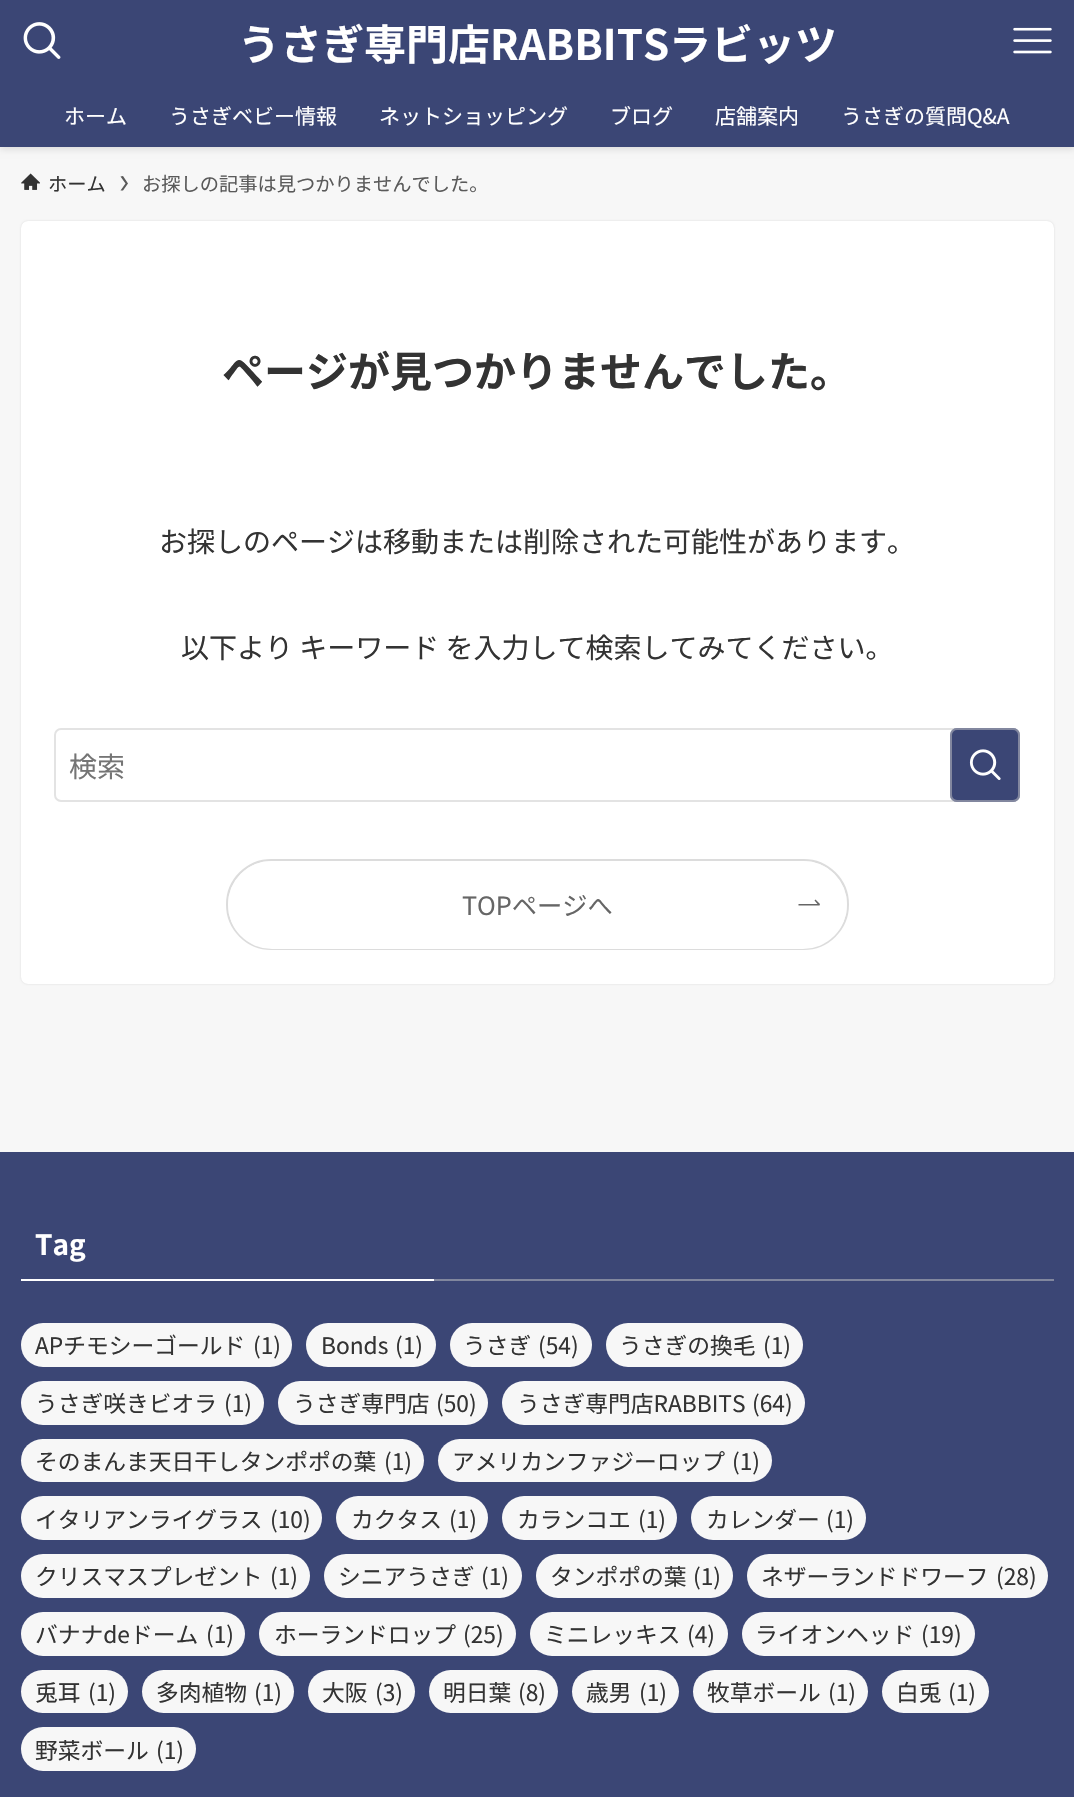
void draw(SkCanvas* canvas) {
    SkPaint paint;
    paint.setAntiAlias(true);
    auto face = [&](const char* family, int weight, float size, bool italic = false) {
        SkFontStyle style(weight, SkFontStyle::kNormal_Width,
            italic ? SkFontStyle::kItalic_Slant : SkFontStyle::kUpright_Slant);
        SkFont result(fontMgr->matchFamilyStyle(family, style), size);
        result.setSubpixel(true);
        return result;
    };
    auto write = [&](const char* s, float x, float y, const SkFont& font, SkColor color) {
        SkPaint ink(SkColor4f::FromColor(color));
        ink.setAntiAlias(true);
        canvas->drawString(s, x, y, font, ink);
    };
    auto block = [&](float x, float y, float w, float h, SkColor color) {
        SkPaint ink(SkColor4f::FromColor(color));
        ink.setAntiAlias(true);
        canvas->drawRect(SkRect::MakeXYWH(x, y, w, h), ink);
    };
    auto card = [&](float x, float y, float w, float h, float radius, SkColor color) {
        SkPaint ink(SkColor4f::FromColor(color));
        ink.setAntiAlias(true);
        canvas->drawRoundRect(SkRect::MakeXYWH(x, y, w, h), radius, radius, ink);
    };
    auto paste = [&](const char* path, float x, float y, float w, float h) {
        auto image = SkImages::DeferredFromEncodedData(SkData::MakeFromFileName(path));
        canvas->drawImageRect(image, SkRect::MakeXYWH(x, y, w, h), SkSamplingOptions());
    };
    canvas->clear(SkColorSetRGB(247, 247, 247));
    paint.setColor(SkColorSetARGB(31, 0, 0, 0));
    paint.setMaskFilter(SkMaskFilter::MakeBlur(kNormal_SkBlurStyle, 3.5f));
    canvas->drawRect(SkRect::MakeXYWH(0, 2, 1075, 147), paint);
    paint.setMaskFilter(nullptr);
    block(0, 0, 1074, 147, SkColorSetRGB(59, 70, 117));
    paste("pic1.png", 23, 22, 38, 37);
    auto kFont1 = face("Noto Sans JP", 700, 42);
    write("うさぎ専門店RABBITSラビッツ", 238, 60, kFont1, SK_ColorWHITE);
    paste("pic2.png", 1013, 27, 39, 27);
    auto kFont2 = face("Noto Sans JP", 400, 21);
    write("ホーム", 64, 124, kFont2, SK_ColorWHITE);
    write("うさぎベビー情報", 169, 124, kFont2, SK_ColorWHITE);
    write("ネットショッピング", 379, 124, kFont2, SK_ColorWHITE);
    write("ブログ", 610, 124, kFont2, SK_ColorWHITE);
    write("店舗案内", 715, 124, kFont2, SK_ColorWHITE);
    write("うさぎの質問Q&A", 841, 124, kFont2, SK_ColorWHITE);
    paste("pic3.png", 21, 173, 19, 17);
    auto kFont3 = face("Noto Sans JP", 400, 19.25f);
    write("ホーム", 48, 191, kFont3, SkColorSetRGB(51, 51, 51));
    paint.setColor(SkColorSetRGB(90, 90, 90));
    canvas->drawPath(SkPathBuilder().moveTo(123, 176).lineTo(120.5f, 176.5f).lineTo(125.5f, 183.5f).lineTo(120.5f, 190.5f).lineTo(123, 190.5f).lineTo(128, 183.5f).close().detach(), paint);
    write("お探しの記事は見つかりませんでした。", 142, 191, kFont3, SkColorSetRGB(90, 90, 90));
    paint.setColor(SkColorSetARGB(31, 0, 0, 0));
    paint.setMaskFilter(SkMaskFilter::MakeBlur(kNormal_SkBlurStyle, 1));
    canvas->drawRoundRect(SkRect::MakeXYWH(21, 221, 1033, 763), 7, 7, paint);
    paint.setMaskFilter(nullptr);
    card(21, 221, 1033, 763, 7, SK_ColorWHITE);
    write("ページが見つかりませんでした。", 222, 387, kFont1, SkColorSetRGB(51, 51, 51));
    auto kFont4 = face("Noto Sans JP", 400, 28);
    write("お探しのページは移動または削除された可能性があります。", 159, 552, kFont4, SkColorSetRGB(51, 51, 51));
    write("以下より キーワード を入力して検索してみてください。", 181, 658, kFont4, SkColorSetRGB(51, 51, 51));
    paint.setStyle(SkPaint::kStroke_Style);
    paint.setStrokeWidth(2);
    paint.setColor(SkColorSetRGB(227, 227, 227));
    canvas->drawRoundRect(SkRect::MakeXYWH(55, 729, 964, 72), 6, 6, paint);
    write("検索", 69, 777, kFont4, SkColorSetRGB(117, 117, 117));
    card(950, 728, 70, 74, 7, SkColorSetRGB(59, 70, 117));
    paint.setColor(SkColorSetARGB(128, 199, 199, 199));
    canvas->drawRoundRect(SkRect::MakeXYWH(951, 729, 68, 72), 6, 6, paint);
    paste("pic4.png", 969, 749, 32, 31);
    paint.setColor(SkColorSetRGB(220, 220, 220));
    canvas->drawRoundRect(SkRect::MakeXYWH(227, 860, 621, 89), 44.5f, 44.5f, paint);
    card(228, 861, 619, 88, 44, SK_ColorWHITE);
    auto kFont5 = face("Noto Sans JP", 400, 25.25f);
    write("TOPページへ", 462, 915, kFont5, SkColorSetRGB(102, 102, 102));
    paint.setStyle(SkPaint::kFill_Style);
    paint.setColor(SkColorSetRGB(102, 102, 102));
    canvas->drawPath(SkPathBuilder().moveTo(819.5f, 905.5f).lineTo(798.5f, 905.5f).lineTo(798.5f, 904).lineTo(817.5f, 904).lineTo(814.5f, 900.5f).lineTo(815.5f, 899.5f).lineTo(820, 904).close().detach(), paint);
    block(0, 1152, 1074, 645, SkColorSetRGB(59, 70, 117));
    auto kFont6 = face("Noto Sans JP", 700, 28);
    write("Tag", 35, 1255, kFont6, SK_ColorWHITE);
    block(21, 1279, 413, 2, SK_ColorWHITE);
    block(434, 1279, 620, 2, SkColorSetRGB(129, 135, 158));
    card(21, 1323, 271, 44, 22, SkColorSetRGB(247, 247, 247));
    auto kFont7 = face("Noto Sans JP", 400, 22.75f);
    write("APチモシーゴールド", 35, 1354, kFont7, SkColorSetRGB(51, 51, 51));
    write("(1)", 253, 1354, kFont7, SkColorSetRGB(51, 51, 51));
    card(306, 1323, 130, 44, 22, SkColorSetRGB(247, 247, 247));
    write("Bonds", 321, 1354, kFont7, SkColorSetRGB(51, 51, 51));
    write("(1)", 395, 1354, kFont7, SkColorSetRGB(51, 51, 51));
    card(450, 1323, 142, 44, 22, SkColorSetRGB(247, 247, 247));
    write("うさぎ", 463, 1354, kFont7, SkColorSetRGB(51, 51, 51));
    write("(54)", 538, 1354, kFont7, SkColorSetRGB(51, 51, 51));
    card(606, 1323, 197, 44, 22, SkColorSetRGB(247, 247, 247));
    write("うさぎの換毛", 619, 1354, kFont7, SkColorSetRGB(51, 51, 51));
    write("(1)", 763, 1354, kFont7, SkColorSetRGB(51, 51, 51));
    card(21, 1381, 243, 44, 22, SkColorSetRGB(247, 247, 247));
    write("うさぎ咲きビオラ", 35, 1412, kFont7, SkColorSetRGB(51, 51, 51));
    write("(1)", 224, 1412, kFont7, SkColorSetRGB(51, 51, 51));
    card(278, 1381, 210, 44, 22, SkColorSetRGB(247, 247, 247));
    write("うさぎ専門店", 293, 1412, kFont7, SkColorSetRGB(51, 51, 51));
    write("(50)", 436, 1412, kFont7, SkColorSetRGB(51, 51, 51));
    card(502, 1381, 303, 44, 22, SkColorSetRGB(247, 247, 247));
    write("うさぎ専門店RABBITS", 517, 1412, kFont7, SkColorSetRGB(51, 51, 51));
    write("(64)", 752, 1412, kFont7, SkColorSetRGB(51, 51, 51));
    card(21, 1439, 403, 43, 21.5f, SkColorSetRGB(247, 247, 247));
    write("そのまんま天日干しタンポポの葉", 35, 1470, kFont7, SkColorSetRGB(51, 51, 51));
    write("(1)", 384, 1470, kFont7, SkColorSetRGB(51, 51, 51));
    card(438, 1439, 334, 43, 21.5f, SkColorSetRGB(247, 247, 247));
    write("アメリカンファジーロップ", 452, 1470, kFont7, SkColorSetRGB(51, 51, 51));
    write("(1)", 732, 1470, kFont7, SkColorSetRGB(51, 51, 51));
    card(21, 1496, 301, 44, 22, SkColorSetRGB(247, 247, 247));
    write("イタリアンライグラス", 35, 1528, kFont7, SkColorSetRGB(51, 51, 51));
    write("(10)", 270, 1528, kFont7, SkColorSetRGB(51, 51, 51));
    card(336, 1496, 152, 44, 22, SkColorSetRGB(247, 247, 247));
    write("カクタス", 351, 1528, kFont7, SkColorSetRGB(51, 51, 51));
    write("(1)", 449, 1528, kFont7, SkColorSetRGB(51, 51, 51));
    card(502, 1496, 175, 44, 22, SkColorSetRGB(247, 247, 247));
    write("カランコエ", 517, 1528, kFont7, SkColorSetRGB(51, 51, 51));
    write("(1)", 638, 1528, kFont7, SkColorSetRGB(51, 51, 51));
    card(691, 1496, 175, 44, 22, SkColorSetRGB(247, 247, 247));
    write("カレンダー", 706, 1528, kFont7, SkColorSetRGB(51, 51, 51));
    write("(1)", 826, 1528, kFont7, SkColorSetRGB(51, 51, 51));
    card(21, 1554, 289, 44, 22, SkColorSetRGB(247, 247, 247));
    write("クリスマスプレゼント", 35, 1585, kFont7, SkColorSetRGB(51, 51, 51));
    write("(1)", 270, 1585, kFont7, SkColorSetRGB(51, 51, 51));
    card(324, 1554, 198, 44, 22, SkColorSetRGB(247, 247, 247));
    write("シニアうさぎ", 338, 1585, kFont7, SkColorSetRGB(51, 51, 51));
    write("(1)", 481, 1585, kFont7, SkColorSetRGB(51, 51, 51));
    card(536, 1554, 197, 44, 22, SkColorSetRGB(247, 247, 247));
    write("タンポポの葉", 550, 1585, kFont7, SkColorSetRGB(51, 51, 51));
    write("(1)", 693, 1585, kFont7, SkColorSetRGB(51, 51, 51));
    card(747, 1554, 301, 44, 22, SkColorSetRGB(247, 247, 247));
    write("ネザーランドドワーフ", 761, 1585, kFont7, SkColorSetRGB(51, 51, 51));
    write("(28)", 996, 1585, kFont7, SkColorSetRGB(51, 51, 51));
    card(21, 1612, 224, 44, 22, SkColorSetRGB(247, 247, 247));
    write("バナナdeドーム", 35, 1643, kFont7, SkColorSetRGB(51, 51, 51));
    write("(1)", 206, 1643, kFont7, SkColorSetRGB(51, 51, 51));
    card(259, 1612, 257, 44, 22, SkColorSetRGB(247, 247, 247));
    write("ホーランドロップ", 274, 1643, kFont7, SkColorSetRGB(51, 51, 51));
    write("(25)", 463, 1643, kFont7, SkColorSetRGB(51, 51, 51));
    card(530, 1612, 198, 44, 22, SkColorSetRGB(247, 247, 247));
    write("ミニレッキス", 544, 1643, kFont7, SkColorSetRGB(51, 51, 51));
    write("(4)", 687, 1643, kFont7, SkColorSetRGB(51, 51, 51));
    card(742, 1612, 233, 44, 22, SkColorSetRGB(247, 247, 247));
    write("ライオンヘッド", 755, 1643, kFont7, SkColorSetRGB(51, 51, 51));
    write("(19)", 921, 1643, kFont7, SkColorSetRGB(51, 51, 51));
    card(21, 1670, 107, 43, 21.5f, SkColorSetRGB(247, 247, 247));
    write("兎耳", 35, 1701, kFont7, SkColorSetRGB(51, 51, 51));
    write("(1)", 88, 1701, kFont7, SkColorSetRGB(51, 51, 51));
    card(142, 1670, 152, 43, 21.5f, SkColorSetRGB(247, 247, 247));
    write("多肉植物", 156, 1701, kFont7, SkColorSetRGB(51, 51, 51));
    write("(1)", 254, 1701, kFont7, SkColorSetRGB(51, 51, 51));
    card(308, 1670, 107, 43, 21.5f, SkColorSetRGB(247, 247, 247));
    write("大阪", 322, 1701, kFont7, SkColorSetRGB(51, 51, 51));
    write("(3)", 375, 1701, kFont7, SkColorSetRGB(51, 51, 51));
    card(429, 1670, 129, 43, 21.5f, SkColorSetRGB(247, 247, 247));
    write("明日葉", 443, 1701, kFont7, SkColorSetRGB(51, 51, 51));
    write("(8)", 518, 1701, kFont7, SkColorSetRGB(51, 51, 51));
    card(572, 1670, 107, 43, 21.5f, SkColorSetRGB(247, 247, 247));
    write("歳男", 586, 1701, kFont7, SkColorSetRGB(51, 51, 51));
    write("(1)", 639, 1701, kFont7, SkColorSetRGB(51, 51, 51));
    card(693, 1670, 175, 43, 21.5f, SkColorSetRGB(247, 247, 247));
    write("牧草ボール", 707, 1701, kFont7, SkColorSetRGB(51, 51, 51));
    write("(1)", 828, 1701, kFont7, SkColorSetRGB(51, 51, 51));
    card(882, 1670, 107, 43, 21.5f, SkColorSetRGB(247, 247, 247));
    write("白兎", 896, 1701, kFont7, SkColorSetRGB(51, 51, 51));
    write("(1)", 948, 1701, kFont7, SkColorSetRGB(51, 51, 51));
    card(21, 1727, 175, 44, 22, SkColorSetRGB(247, 247, 247));
    write("野菜ボール", 35, 1759, kFont7, SkColorSetRGB(51, 51, 51));
    write("(1)", 156, 1759, kFont7, SkColorSetRGB(51, 51, 51));
}
